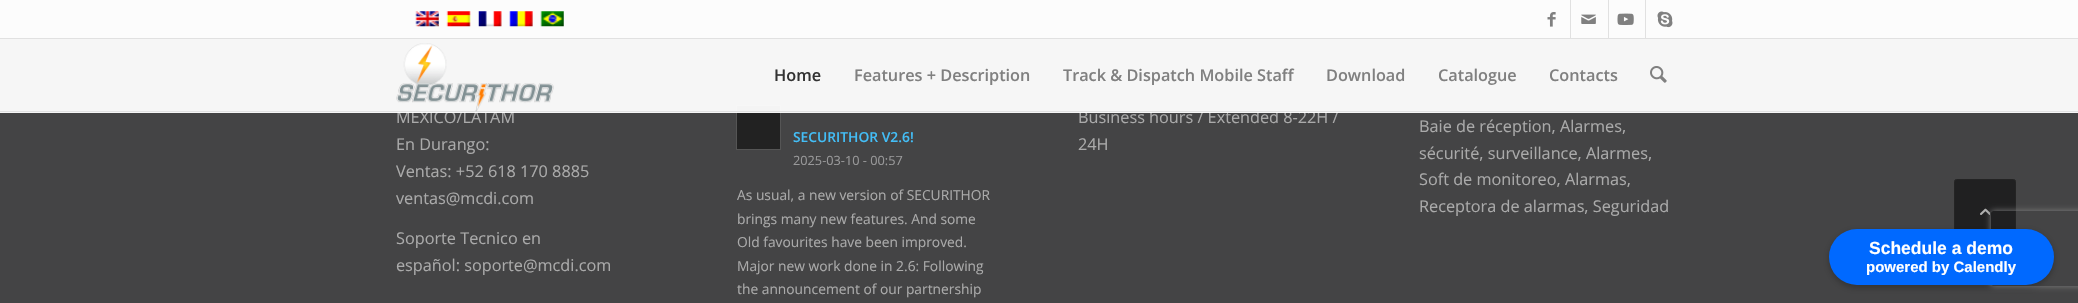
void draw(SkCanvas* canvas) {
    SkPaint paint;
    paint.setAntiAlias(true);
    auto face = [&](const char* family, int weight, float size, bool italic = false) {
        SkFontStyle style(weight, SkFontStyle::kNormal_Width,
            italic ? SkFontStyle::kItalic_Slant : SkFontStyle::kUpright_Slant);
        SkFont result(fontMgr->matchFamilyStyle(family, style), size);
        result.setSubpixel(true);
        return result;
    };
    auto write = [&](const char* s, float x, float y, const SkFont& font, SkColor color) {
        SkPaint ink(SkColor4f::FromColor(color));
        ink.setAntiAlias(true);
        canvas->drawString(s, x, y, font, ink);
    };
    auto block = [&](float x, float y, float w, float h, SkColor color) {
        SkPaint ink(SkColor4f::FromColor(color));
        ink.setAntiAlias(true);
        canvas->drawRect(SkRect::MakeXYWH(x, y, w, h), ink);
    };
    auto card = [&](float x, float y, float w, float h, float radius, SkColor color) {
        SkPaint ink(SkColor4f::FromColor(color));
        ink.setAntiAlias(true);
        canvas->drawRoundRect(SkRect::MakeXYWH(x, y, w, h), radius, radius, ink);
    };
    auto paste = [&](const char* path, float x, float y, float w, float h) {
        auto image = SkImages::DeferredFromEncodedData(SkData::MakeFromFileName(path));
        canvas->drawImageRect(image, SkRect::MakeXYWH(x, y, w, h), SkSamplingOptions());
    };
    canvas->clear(SkColorSetRGB(68, 68, 69));
    block(0, 0, 2078, 38, SkColorSetRGB(252, 252, 252));
    block(0, 38, 2078, 1, SkColorSetRGB(225, 225, 225));
    paste("pic1.png", 415, 11, 24, 16);
    paste("pic2.png", 446, 11, 25, 16);
    paste("pic3.png", 478, 11, 24, 16);
    paste("pic4.png", 509, 11, 24, 16);
    paste("pic5.png", 540, 11, 24, 16);
    block(1570, 0, 1, 38, SkColorSetRGB(225, 225, 225));
    paste("pic6.png", 1547, 12, 9, 15);
    block(1608, 0, 1, 38, SkColorSetRGB(225, 225, 225));
    paste("pic7.png", 1581, 14, 15, 10);
    block(1645, 0, 1, 38, SkColorSetRGB(225, 225, 225));
    paste("pic8.png", 1617, 13, 17, 12);
    paste("pic9.png", 1657, 11, 16, 17);
    auto kFont1 = face("Open Sans", 400, 16.25f);
    write("MEXICO/LATAM", 396, 123, kFont1, SkColorSetRGB(170, 170, 170));
    paint.setColor(SkColorSetRGB(34, 34, 34));
    canvas->drawRect(SkRect::MakeXYWH(736.5f, 105.5f, 44, 44), paint);
    paint.setStyle(SkPaint::kStroke_Style);
    paint.setStrokeWidth(1);
    paint.setColor(SkColorSetRGB(85, 85, 85));
    canvas->drawRect(SkRect::MakeXYWH(736.5f, 105.5f, 44, 44), paint);
    write("Business hours / Extended 8-22H /", 1078, 123, kFont1, SkColorSetRGB(170, 170, 170));
    block(0, 39, 2078, 74, SkColorSetARGB(242, 255, 255, 255));
    block(0, 111, 2078, 1, SkColorSetRGB(225, 225, 225));
    paste("pic10.png", 396, 43, 158, 69);
    auto kFont2 = face("Open Sans", 600, 16.25f);
    write("Home", 774, 81, kFont2, SkColorSetRGB(51, 51, 51));
    write("Features + Description", 854, 81, kFont2, SkColorSetRGB(128, 128, 128));
    write("Track & Dispatch Mobile Staff", 1063, 81, kFont2, SkColorSetRGB(128, 128, 128));
    write("Download", 1326, 81, kFont2, SkColorSetRGB(128, 128, 128));
    write("Catalogue", 1438, 81, kFont2, SkColorSetRGB(128, 128, 128));
    write("Contacts", 1549, 81, kFont2, SkColorSetRGB(128, 128, 128));
    paste("pic11.png", 1650, 66, 17, 17);
    write("En Durango:", 396, 150, kFont1, SkColorSetRGB(170, 170, 170));
    write("Ventas: +52 618 170 8885", 396, 177, kFont1, SkColorSetRGB(170, 170, 170));
    write("ventas@mcdi.com", 396, 204, kFont1, SkColorSetRGB(170, 170, 170));
    write("Soporte Tecnico en", 396, 244, kFont1, SkColorSetRGB(170, 170, 170));
    write("español: soporte@mcdi.com", 396, 271, kFont1, SkColorSetRGB(170, 170, 170));
    auto kFont3 = face("Open Sans", 600, 13.8f);
    write("SECURITHOR V2.6!", 793, 142, kFont3, SkColorSetRGB(67, 190, 247));
    auto kFont4 = face("Open Sans", 400, 12.75f);
    write("2025-03-10 - 00:57", 793, 165, kFont4, SkColorSetRGB(153, 153, 154));
    auto kFont5 = face("Open Sans", 400, 13.8f);
    write("As usual, a new version of SECURITHOR", 737, 200, kFont5, SkColorSetRGB(170, 170, 170));
    write("brings many new features. And some", 737, 224, kFont5, SkColorSetRGB(170, 170, 170));
    write("Old favourites have been improved.", 737, 247, kFont5, SkColorSetRGB(170, 170, 170));
    write("Major new work done in 2.6: Following", 737, 271, kFont5, SkColorSetRGB(170, 170, 170));
    write("the announcement of our partnership", 737, 294, kFont5, SkColorSetRGB(170, 170, 170));
    write("24H", 1078, 150, kFont1, SkColorSetRGB(170, 170, 170));
    write("Baie de réception, Alarmes,", 1419, 132, kFont1, SkColorSetRGB(170, 170, 170));
    write("sécurité, surveillance, Alarmes,", 1419, 159, kFont1, SkColorSetRGB(170, 170, 170));
    write("Soft de monitoreo, Alarmas,", 1419, 185, kFont1, SkColorSetRGB(170, 170, 170));
    write("Receptora de alarmas, Seguridad", 1419, 212, kFont1, SkColorSetRGB(170, 170, 170));
    paint.setStyle(SkPaint::kFill_Style);
    paint.setColor(SkColorSetRGB(32, 32, 33));
    canvas->drawRoundRect(SkRect::MakeXYWH(1954.5f, 179.5f, 61, 61), 2, 2, paint);
    paint.setStyle(SkPaint::kStroke_Style);
    paint.setColor(SkColorSetRGB(36, 36, 36));
    canvas->drawRoundRect(SkRect::MakeXYWH(1954.5f, 179.5f, 61, 61), 2, 2, paint);
    paste("pic12.png", 1980, 208, 10, 7);
    paint.setStyle(SkPaint::kFill_Style);
    paint.setColor(SkColorSetARGB(64, 0, 0, 0));
    paint.setMaskFilter(SkMaskFilter::MakeBlur(kNormal_SkBlurStyle, 3));
    canvas->drawRoundRect(SkRect::MakeXYWH(1829, 231, 225, 57), 28.5f, 28.5f, paint);
    paint.setMaskFilter(nullptr);
    canvas->save();
    canvas->clipPath(SkPathBuilder(SkPathFillType::kEvenOdd).moveTo(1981, 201).lineTo(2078, 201).lineTo(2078, 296).lineTo(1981, 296).close().moveTo(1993.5f, 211).lineTo(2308.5f, 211).cubicTo(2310, 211, 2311, 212, 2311, 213.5f).lineTo(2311, 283.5f).cubicTo(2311, 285, 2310, 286, 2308.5f, 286).lineTo(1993.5f, 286).cubicTo(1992, 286, 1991, 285, 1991, 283.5f).lineTo(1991, 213.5f).cubicTo(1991, 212, 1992, 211, 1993.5f, 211).close().detach(), true);
    paint.setColor(SkColorSetRGB(128, 128, 128));
    paint.setMaskFilter(SkMaskFilter::MakeBlur(kNormal_SkBlurStyle, 3));
    canvas->drawRoundRect(SkRect::MakeXYWH(1991, 211, 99, 75), 2.5f, 2.5f, paint);
    paint.setMaskFilter(nullptr);
    canvas->restore();
    card(1829, 229, 225, 56, 28, SkColorSetRGB(0, 105, 255));
    auto kFont6 = face("Liberation Sans", 700, 17.5f);
    write("Schedule a demo", 1869, 254, kFont6, SK_ColorWHITE);
    auto kFont7 = face("Liberation Sans", 700, 15);
    write("powered by Calendly", 1866, 272, kFont7, SK_ColorWHITE);
}
